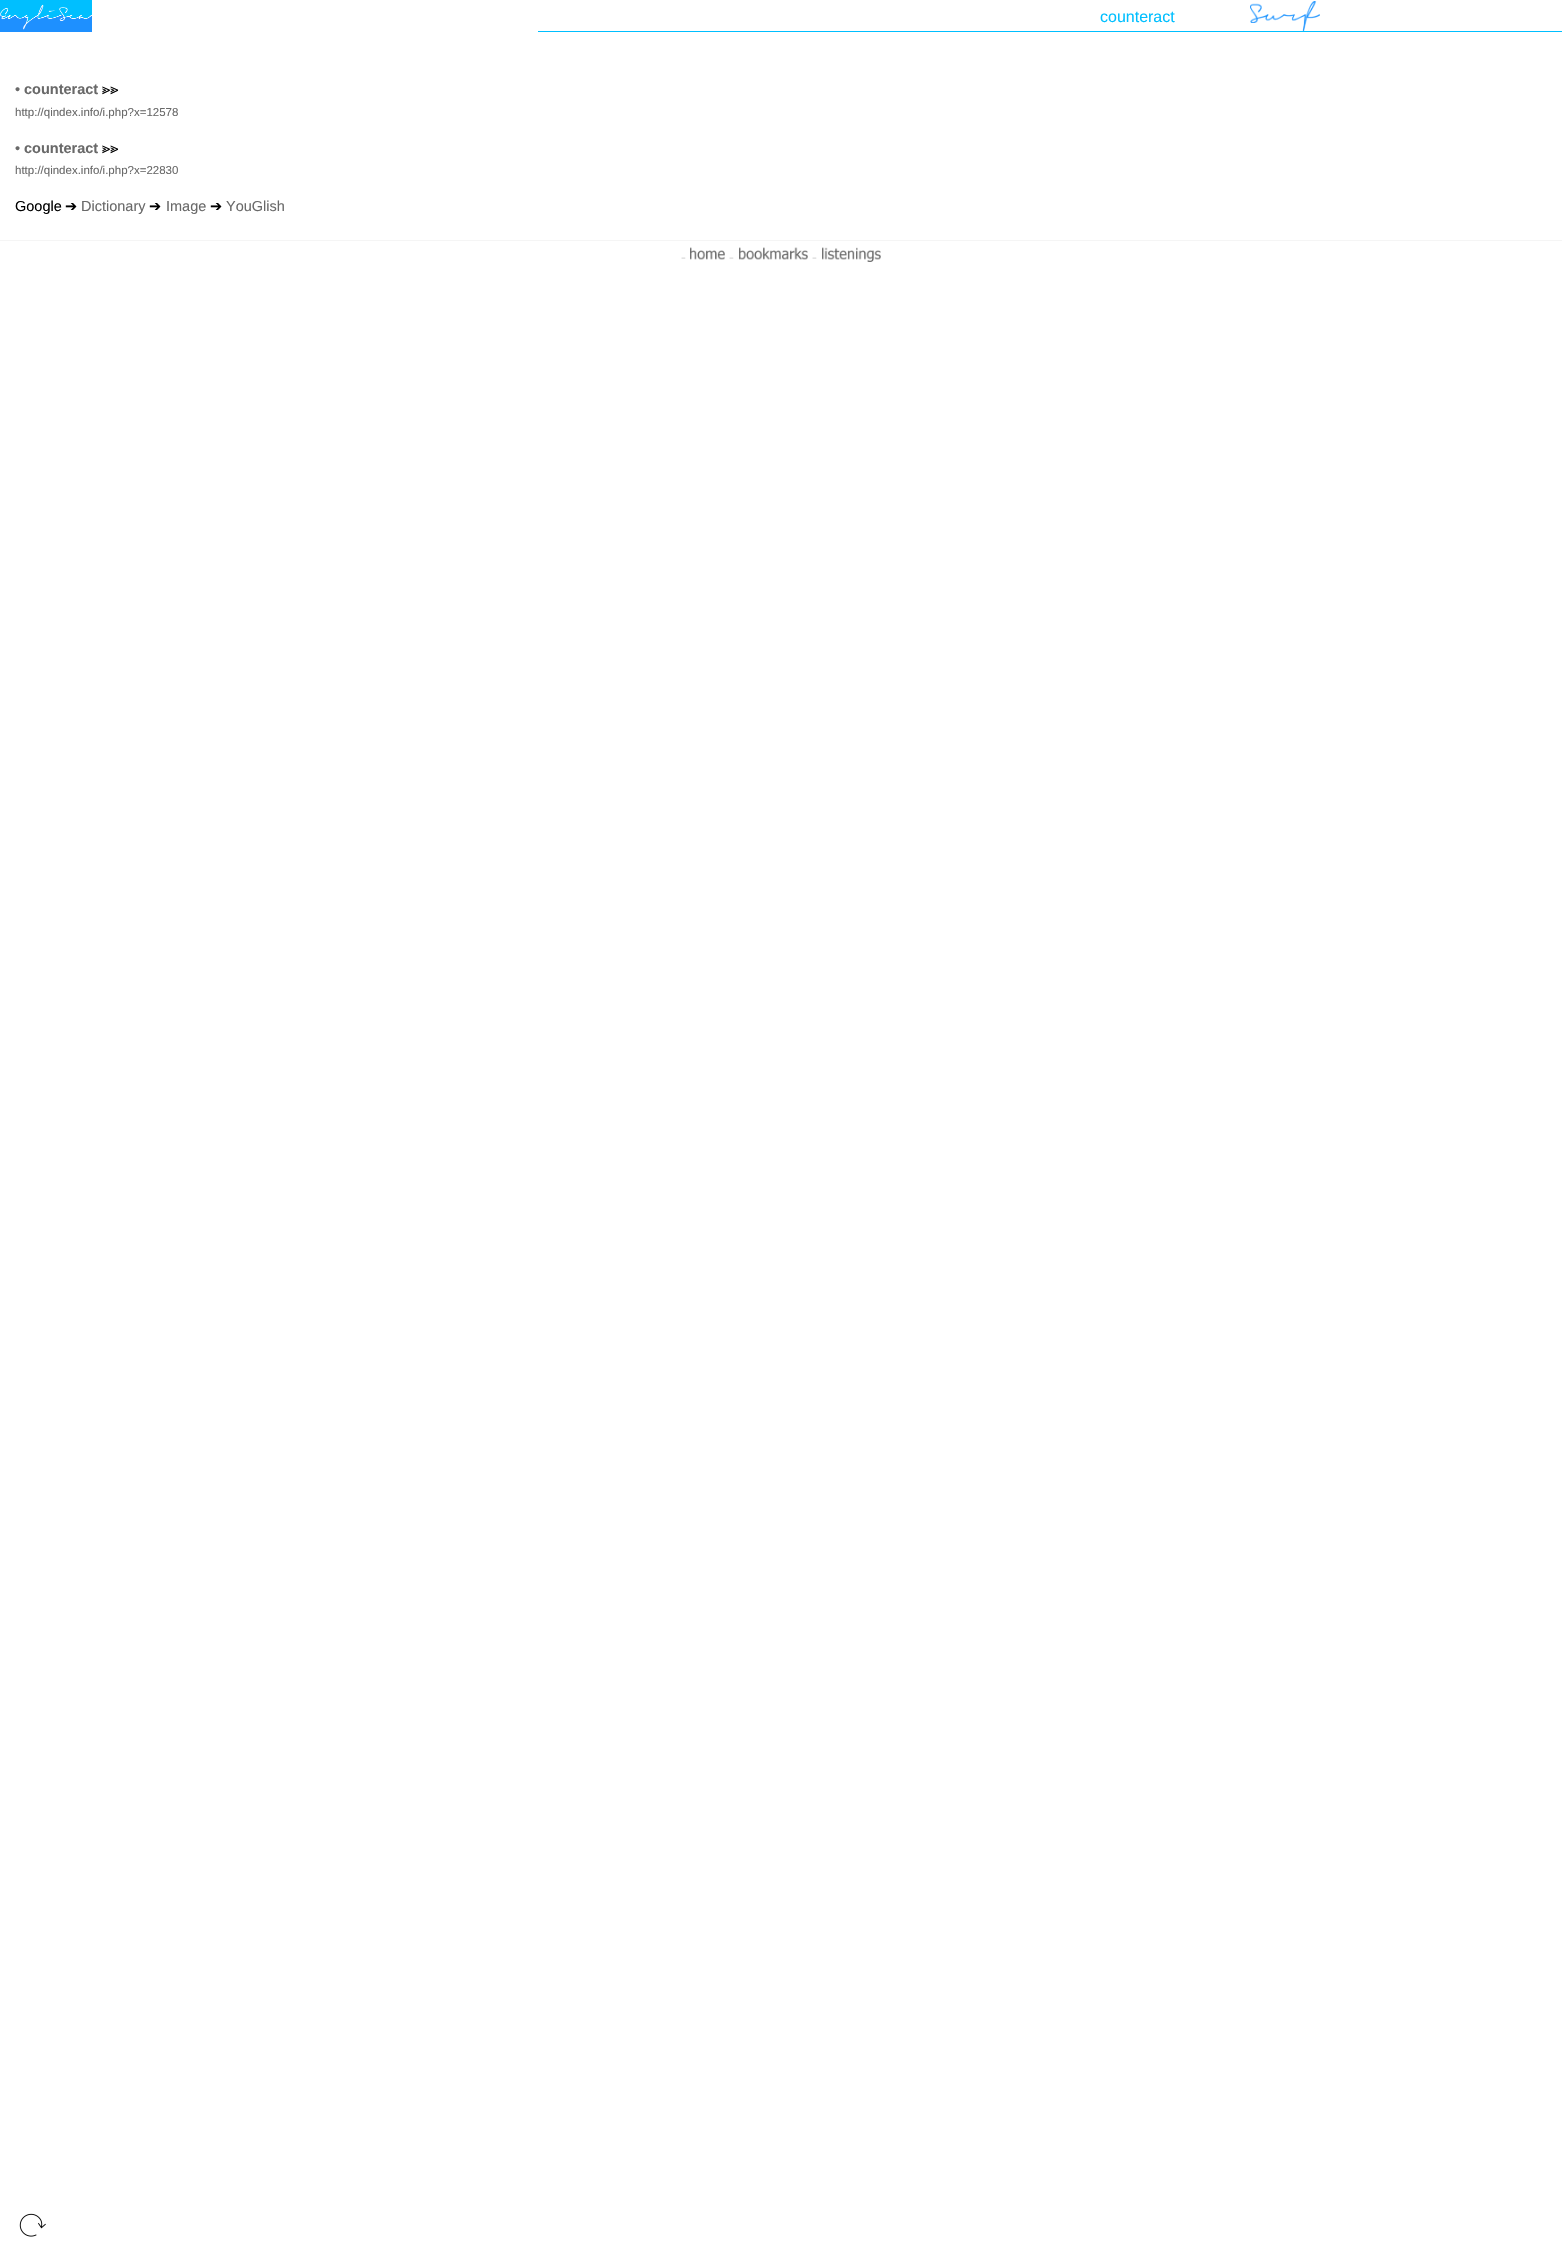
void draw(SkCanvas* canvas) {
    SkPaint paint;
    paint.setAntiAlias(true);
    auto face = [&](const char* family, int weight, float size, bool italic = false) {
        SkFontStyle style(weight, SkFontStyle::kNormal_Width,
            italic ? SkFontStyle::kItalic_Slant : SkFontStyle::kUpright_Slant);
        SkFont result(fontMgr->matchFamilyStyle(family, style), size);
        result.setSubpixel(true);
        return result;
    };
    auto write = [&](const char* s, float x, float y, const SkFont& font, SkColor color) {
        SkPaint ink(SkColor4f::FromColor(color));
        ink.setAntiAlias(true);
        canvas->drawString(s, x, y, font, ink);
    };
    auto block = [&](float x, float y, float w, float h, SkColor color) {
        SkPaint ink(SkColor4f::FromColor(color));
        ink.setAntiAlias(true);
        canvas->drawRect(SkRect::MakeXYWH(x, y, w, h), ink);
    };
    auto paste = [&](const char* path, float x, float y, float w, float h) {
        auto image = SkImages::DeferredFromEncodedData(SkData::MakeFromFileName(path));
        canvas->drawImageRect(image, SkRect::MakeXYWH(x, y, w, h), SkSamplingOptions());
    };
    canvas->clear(SK_ColorWHITE);
    paste("pic1.png", 0, 0, 92, 32);
    block(538, 31, 1024, 1, SkColorSetRGB(0, 191, 255));
    auto kFont1 = face("Liberation Sans", 400, 16);
    write("counteract", 1100, 22, kFont1, SkColorSetRGB(0, 191, 255));
    paste("pic2.png", 1250, 1, 70, 30);
    auto kFont2 = face("Liberation Sans", 400, 14.5f);
    write("•", 15, 94, kFont2, SkColorSetRGB(105, 105, 105));
    auto kFont3 = face("Liberation Sans", 700, 14.5f);
    write("counteract", 24, 94, kFont3, SkColorSetRGB(105, 105, 105));
    auto kFont4 = face("FreeSerif", 400, 14.5f);
    write("⪢⪢", 102, 94, kFont4, SK_ColorBLACK);
    auto kFont5 = face("Liberation Sans", 400, 11.5f);
    write("http://qindex.info/i.php?x=12578", 15, 116, kFont5, SkColorSetRGB(105, 105, 105));
    write("•", 15, 153, kFont2, SkColorSetRGB(105, 105, 105));
    write("counteract", 24, 153, kFont3, SkColorSetRGB(105, 105, 105));
    write("⪢⪢", 102, 153, kFont4, SK_ColorBLACK);
    write("http://qindex.info/i.php?x=22830", 15, 174, kFont5, SkColorSetRGB(105, 105, 105));
    write("Google", 15, 211, kFont2, SK_ColorBLACK);
    auto kFont6 = face("DejaVu Sans", 400, 14.5f);
    write("➔", 65, 211, kFont6, SK_ColorBLACK);
    write("Dictionary", 81, 211, kFont2, SkColorSetRGB(105, 105, 105));
    write("➔", 149, 211, kFont6, SK_ColorBLACK);
    write("Image", 166, 211, kFont2, SkColorSetRGB(105, 105, 105));
    write("➔", 210, 211, kFont6, SK_ColorBLACK);
    write("YouGlish", 226, 211, kFont2, SkColorSetRGB(105, 105, 105));
    block(0, 240, 1562, 1, SkColorSetRGB(245, 245, 245));
    write("-", 681, 262, kFont2, SkColorSetRGB(220, 220, 220));
    paste("pic3.png", 690, 247, 35, 13);
    write("-", 729, 262, kFont2, SkColorSetRGB(220, 220, 220));
    paste("pic4.png", 739, 247, 69, 13);
    write("-", 812, 262, kFont2, SkColorSetRGB(220, 220, 220));
    paste("pic5.png", 822, 247, 59, 15);
    paste("pic6.png", 19, 2213, 27, 24);
}
